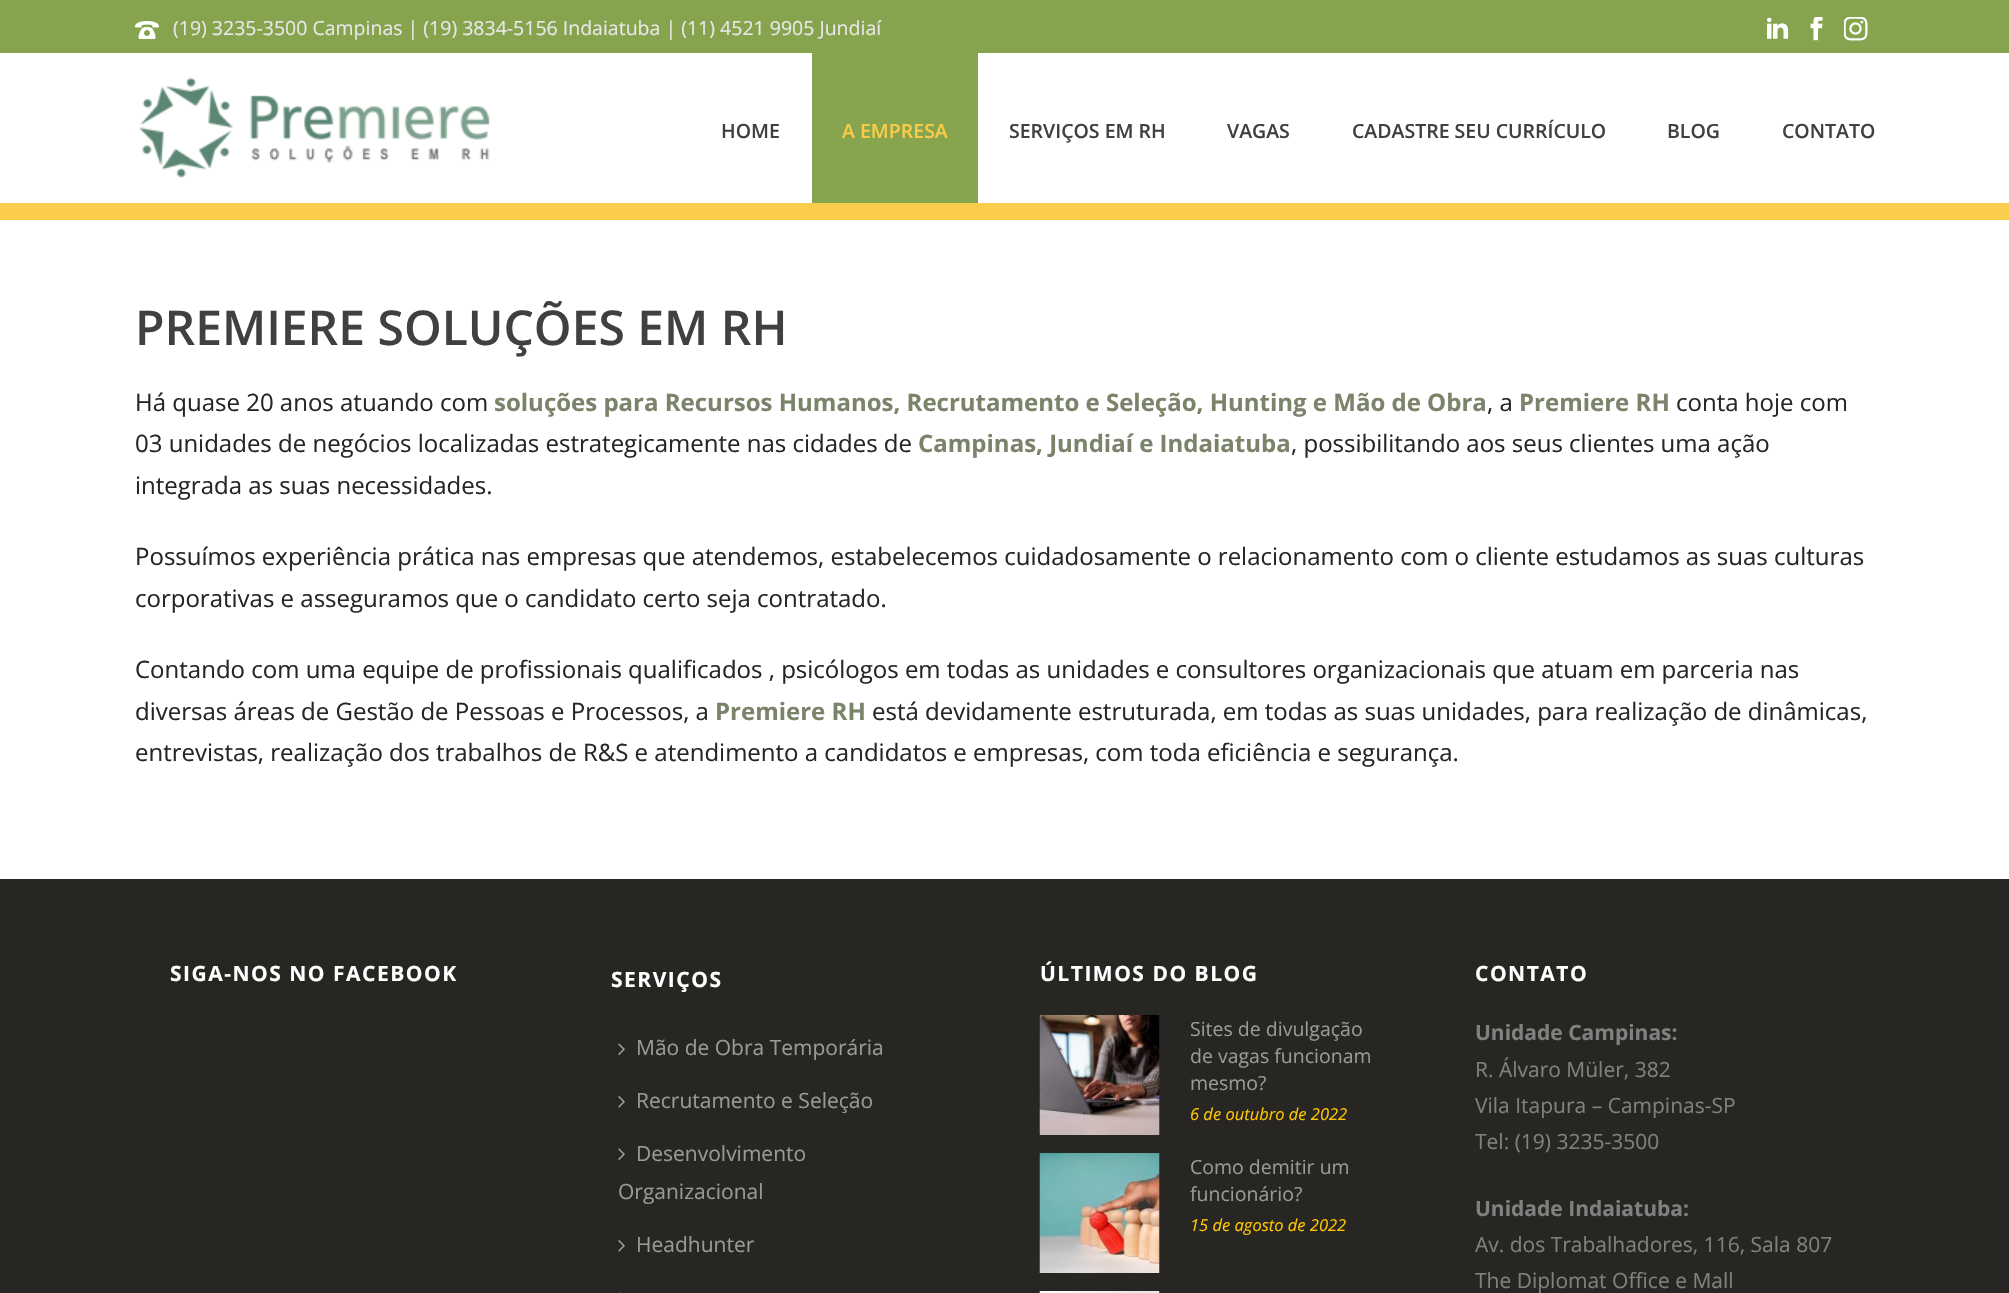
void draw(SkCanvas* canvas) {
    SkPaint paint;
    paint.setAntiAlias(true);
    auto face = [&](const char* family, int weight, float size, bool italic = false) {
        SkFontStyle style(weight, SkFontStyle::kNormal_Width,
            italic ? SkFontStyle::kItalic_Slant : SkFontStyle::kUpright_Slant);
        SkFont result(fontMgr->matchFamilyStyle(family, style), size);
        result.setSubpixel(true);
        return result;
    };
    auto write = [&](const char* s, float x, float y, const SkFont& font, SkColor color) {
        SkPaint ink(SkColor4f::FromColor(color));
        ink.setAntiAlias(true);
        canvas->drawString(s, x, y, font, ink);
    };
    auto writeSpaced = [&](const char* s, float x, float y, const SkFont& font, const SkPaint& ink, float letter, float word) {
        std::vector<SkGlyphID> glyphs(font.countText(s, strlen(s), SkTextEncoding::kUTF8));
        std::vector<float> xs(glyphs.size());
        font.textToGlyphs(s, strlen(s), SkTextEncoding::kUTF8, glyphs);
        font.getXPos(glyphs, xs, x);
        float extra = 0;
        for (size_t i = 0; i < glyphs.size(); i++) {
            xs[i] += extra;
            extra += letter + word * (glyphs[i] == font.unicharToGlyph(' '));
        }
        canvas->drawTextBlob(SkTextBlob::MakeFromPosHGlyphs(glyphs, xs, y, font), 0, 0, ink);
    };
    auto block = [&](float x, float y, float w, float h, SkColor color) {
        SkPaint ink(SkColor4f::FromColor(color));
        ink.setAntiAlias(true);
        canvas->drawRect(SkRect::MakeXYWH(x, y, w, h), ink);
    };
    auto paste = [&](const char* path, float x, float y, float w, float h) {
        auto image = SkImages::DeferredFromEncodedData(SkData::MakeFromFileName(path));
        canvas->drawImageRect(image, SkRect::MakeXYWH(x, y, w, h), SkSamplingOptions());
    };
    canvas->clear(SK_ColorWHITE);
    block(0, 203, 2009, 15, SkColorSetRGB(251, 205, 77));
    block(0, 218, 2009, 2, SkColorSetRGB(250, 204, 74));
    block(0, 0, 2009, 53, SkColorSetRGB(134, 163, 78));
    paste("pic1.png", 135, 21, 24, 18);
    auto kFont1 = face("Open Sans", 400, 19.5f);
    write("(19) 3235-3500 Campinas | (19) 3834-5156 Indaiatuba | (11) 4521 9905 Jundiaí", 173, 35, kFont1, SkColorSetRGB(232, 232, 232));
    paste("pic2.png", 1767, 17, 22, 22);
    paste("pic3.png", 1810, 17, 13, 24);
    paste("pic4.png", 1844, 17, 24, 24);
    paste("pic5.png", 139, 77, 351, 101);
    auto kFont2 = face("Open Sans", 600, 19.5f);
    write("HOME", 721, 138, kFont2, SkColorSetRGB(64, 64, 64));
    block(812, 53, 166, 150, SkColorSetRGB(135, 164, 79));
    write("A EMPRESA", 842, 138, kFont2, SkColorSetRGB(250, 204, 74));
    write("SERVIÇOS EM RH", 1009, 138, kFont2, SkColorSetRGB(64, 64, 64));
    write("VAGAS", 1227, 138, kFont2, SkColorSetRGB(64, 64, 64));
    write("CADASTRE SEU CURRÍCULO", 1352, 138, kFont2, SkColorSetRGB(64, 64, 64));
    write("BLOG", 1667, 138, kFont2, SkColorSetRGB(64, 64, 64));
    write("CONTATO", 1782, 138, kFont2, SkColorSetRGB(64, 64, 64));
    auto kFont3 = face("Open Sans", 600, 48);
    write("PREMIERE SOLUÇÕES EM RH", 135, 345, kFont3, SkColorSetRGB(64, 64, 64));
    auto kFont4 = face("Open Sans", 400, 24);
    write("Há quase 20 anos atuando com", 135, 411, kFont4, SkColorSetRGB(40, 38, 35));
    auto kFont5 = face("Open Sans", 700, 24);
    write("soluções para Recursos Humanos, Recrutamento e Seleção, Hunting e Mão de Obra", 494, 411, kFont5, SkColorSetRGB(123, 132, 107));
    write(", a", 1487, 411, kFont4, SkColorSetRGB(40, 38, 35));
    write("Premiere RH", 1519, 411, kFont5, SkColorSetRGB(123, 132, 107));
    write("conta hoje com", 1676, 411, kFont4, SkColorSetRGB(40, 38, 35));
    write("03 unidades de negócios localizadas estrategicamente nas cidades de", 135, 452, kFont4, SkColorSetRGB(40, 38, 35));
    write("Campinas, Jundiaí e Indaiatuba", 918, 452, kFont5, SkColorSetRGB(123, 132, 107));
    write(", possibilitando aos seus clientes uma ação", 1291, 452, kFont4, SkColorSetRGB(40, 38, 35));
    write("integrada as suas necessidades.", 135, 494, kFont4, SkColorSetRGB(40, 38, 35));
    write("Possuímos experiência prática nas empresas que atendemos, estabelecemos cuidadosamente o relacionamento com o cliente estudamos as suas culturas", 135, 565, kFont4, SkColorSetRGB(40, 38, 35));
    write("corporativas e asseguramos que o candidato certo seja contratado.", 135, 607, kFont4, SkColorSetRGB(40, 38, 35));
    write("Contando com uma equipe de profissionais qualificados , psicólogos em todas as unidades e consultores organizacionais que atuam em parceria nas", 135, 678, kFont4, SkColorSetRGB(40, 38, 35));
    write("diversas áreas de Gestão de Pessoas e Processos, a", 135, 720, kFont4, SkColorSetRGB(40, 38, 35));
    write("Premiere RH", 715, 720, kFont5, SkColorSetRGB(123, 132, 107));
    write("está devidamente estruturada, em todas as suas unidades, para realização de dinâmicas,", 872, 720, kFont4, SkColorSetRGB(40, 38, 35));
    write("entrevistas, realização dos trabalhos de R&S e atendimento a candidatos e empresas, com toda eficiência e segurança.", 135, 761, kFont4, SkColorSetRGB(40, 38, 35));
    block(0, 879, 2009, 414, SkColorSetRGB(40, 38, 35));
    auto kFont6 = face("Open Sans", 700, 21);
    paint.setColor(SK_ColorWHITE);
    writeSpaced("SIGA-NOS NO FACEBOOK", 170, 981, kFont6, paint, 1.5f, 0);
    writeSpaced("SERVIÇOS", 611, 987, kFont6, paint, 1.5f, 0);
    paste("pic6.png", 618, 1043, 7, 12);
    auto kFont7 = face("Open Sans", 400, 21);
    write("Mão de Obra Temporária", 636, 1055, kFont7, SkColorSetRGB(153, 153, 153));
    paste("pic7.png", 618, 1096, 7, 12);
    write("Recrutamento e Seleção", 636, 1108, kFont7, SkColorSetRGB(153, 153, 153));
    paste("pic6.png", 618, 1148, 7, 12);
    write("Desenvolvimento", 636, 1161, kFont7, SkColorSetRGB(153, 153, 153));
    write("Organizacional", 618, 1199, kFont7, SkColorSetRGB(153, 153, 153));
    paste("pic7.png", 618, 1240, 7, 12);
    write("Headhunter", 636, 1252, kFont7, SkColorSetRGB(153, 153, 153));
    paste("pic8.png", 618, 1292, 2, 1);
    writeSpaced("ÚLTIMOS DO BLOG", 1040, 981, kFont6, paint, 1.5f, 0);
    paste("pic9.png", 1039, 1015, 121, 120);
    write("Sites de divulgação", 1190, 1036, kFont1, SkColorSetRGB(153, 153, 153));
    write("de vagas funcionam", 1190, 1063, kFont1, SkColorSetRGB(153, 153, 153));
    write("mesmo?", 1190, 1090, kFont1, SkColorSetRGB(153, 153, 153));
    auto kFont8 = face("Open Sans", 400, 16.5f, true);
    write("6 de outubro de 2022", 1190, 1120, kFont8, SkColorSetRGB(253, 197, 2));
    paste("pic10.png", 1039, 1153, 121, 120);
    write("Como demitir um", 1190, 1174, kFont1, SkColorSetRGB(153, 153, 153));
    write("funcionário?", 1190, 1201, kFont1, SkColorSetRGB(153, 153, 153));
    write("15 de agosto de 2022", 1190, 1231, kFont8, SkColorSetRGB(253, 197, 2));
    paste("pic11.png", 1039, 1291, 121, 2);
    writeSpaced("CONTATO", 1475, 981, kFont6, paint, 1.5f, 0);
    write("Unidade Campinas:", 1475, 1040, kFont6, SkColorSetRGB(128, 128, 128));
    write("R. Álvaro Müler, 382", 1475, 1077, kFont7, SkColorSetRGB(128, 128, 128));
    write("Vila Itapura – Campinas-SP", 1475, 1113, kFont7, SkColorSetRGB(128, 128, 128));
    write("Tel: (19) 3235-3500", 1475, 1149, kFont7, SkColorSetRGB(128, 128, 128));
    write("Unidade Indaiatuba:", 1475, 1216, kFont6, SkColorSetRGB(128, 128, 128));
    write("Av. dos Trabalhadores, 116, Sala 807", 1475, 1252, kFont7, SkColorSetRGB(128, 128, 128));
    write("The Diplomat Office e Mall", 1475, 1288, kFont7, SkColorSetRGB(128, 128, 128));
}
